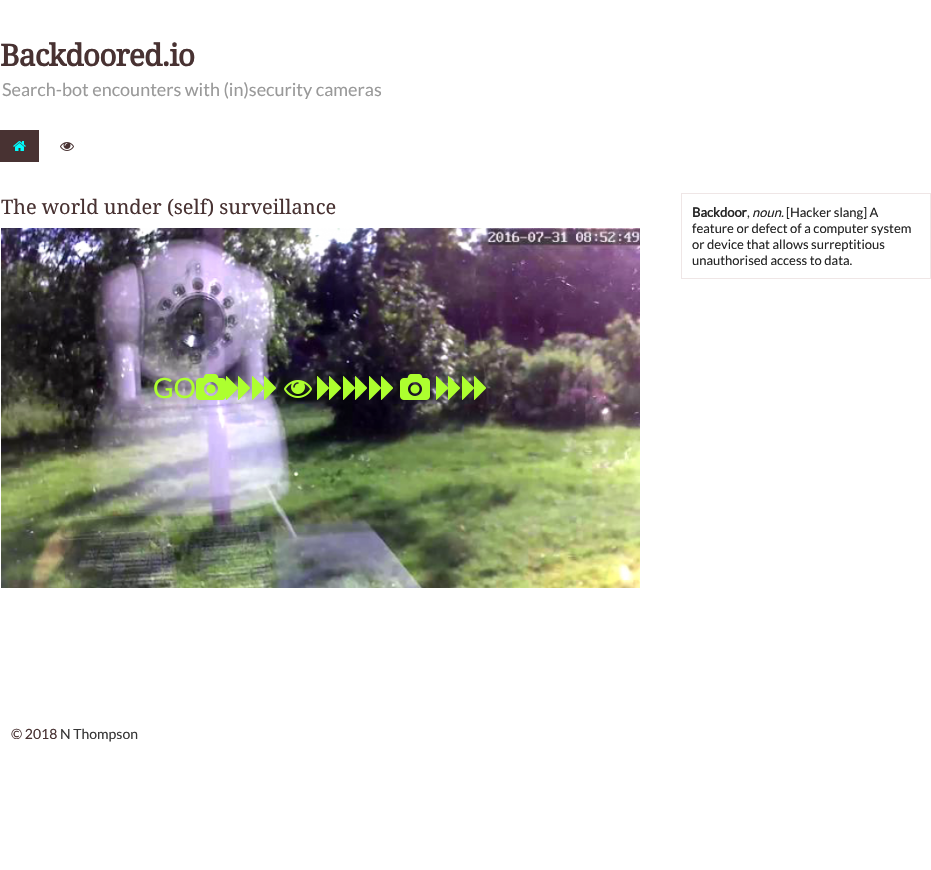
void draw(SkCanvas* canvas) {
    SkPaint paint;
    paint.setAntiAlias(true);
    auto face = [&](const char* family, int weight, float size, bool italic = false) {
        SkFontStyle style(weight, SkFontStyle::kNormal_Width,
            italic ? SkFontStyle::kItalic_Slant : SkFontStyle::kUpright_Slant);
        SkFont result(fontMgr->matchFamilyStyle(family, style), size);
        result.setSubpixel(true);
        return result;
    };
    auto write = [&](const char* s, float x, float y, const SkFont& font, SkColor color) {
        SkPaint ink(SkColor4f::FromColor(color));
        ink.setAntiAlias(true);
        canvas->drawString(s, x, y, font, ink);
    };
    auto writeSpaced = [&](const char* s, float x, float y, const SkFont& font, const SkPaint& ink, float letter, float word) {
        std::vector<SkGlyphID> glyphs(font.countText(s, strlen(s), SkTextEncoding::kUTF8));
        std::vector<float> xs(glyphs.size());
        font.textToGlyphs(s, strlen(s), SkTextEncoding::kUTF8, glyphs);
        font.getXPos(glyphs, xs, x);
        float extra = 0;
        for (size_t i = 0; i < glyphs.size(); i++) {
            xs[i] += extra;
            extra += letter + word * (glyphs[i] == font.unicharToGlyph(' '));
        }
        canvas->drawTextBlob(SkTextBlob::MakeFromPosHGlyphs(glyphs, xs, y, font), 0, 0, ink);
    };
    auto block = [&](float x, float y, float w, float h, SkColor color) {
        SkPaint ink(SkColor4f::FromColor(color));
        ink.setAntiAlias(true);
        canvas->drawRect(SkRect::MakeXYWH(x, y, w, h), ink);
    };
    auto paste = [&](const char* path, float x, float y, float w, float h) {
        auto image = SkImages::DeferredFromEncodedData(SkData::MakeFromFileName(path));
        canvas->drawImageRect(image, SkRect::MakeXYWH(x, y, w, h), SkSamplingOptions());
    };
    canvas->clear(SK_ColorWHITE);
    auto kFont1 = face("Droid Serif", 700, 30);
    paint.setColor(SkColorSetRGB(72, 50, 50));
    writeSpaced("Backdoored.io", 0, 66, kFont1, paint, -0.9f, 0);
    auto kFont2 = face("Lato", 400, 18);
    write("Search-bot encounters with (in)security cameras", 2, 96, kFont2, SkColorSetRGB(153, 153, 153));
    block(0, 130, 39, 32, SkColorSetRGB(72, 50, 50));
    paste("pic1.png", 13, 141, 13, 10);
    paste("pic2.png", 60, 142, 14, 9);
    auto kFont3 = face("Droid Serif", 400, 20);
    write("The world under (self) surveillance", 1, 214, kFont3, SkColorSetRGB(72, 50, 50));
    paste("pic3.png", 1, 228, 639, 360);
    auto kFont4 = face("Lato", 400, 28);
    write("GO", 153, 398, kFont4, SkColorSetRGB(173, 255, 47));
    paste("pic4.png", 196, 374, 30, 26);
    paste("pic5.png", 226, 376, 24, 24);
    paste("pic6.png", 252, 376, 24, 24);
    paste("pic7.png", 284, 380, 28, 18);
    paste("pic8.png", 317, 376, 24, 24);
    paste("pic9.png", 343, 376, 24, 24);
    paste("pic10.png", 369, 376, 24, 24);
    paste("pic11.png", 400, 374, 30, 26);
    paste("pic12.png", 436, 376, 24, 24);
    paste("pic13.png", 462, 376, 24, 24);
    paint.setStyle(SkPaint::kStroke_Style);
    paint.setStrokeWidth(1);
    paint.setColor(SkColorSetRGB(239, 230, 230));
    canvas->drawRect(SkRect::MakeXYWH(681.5f, 193.5f, 249, 85), paint);
    auto kFont5 = face("Lato", 700, 13);
    write("Backdoor", 692, 217, kFont5, SkColorSetRGB(37, 37, 37));
    auto kFont6 = face("Lato", 400, 13);
    write(",", 747, 217, kFont6, SkColorSetRGB(37, 37, 37));
    auto kFont7 = face("Lato", 400, 13, true);
    write("noun.", 752, 217, kFont7, SkColorSetRGB(37, 37, 37));
    write("[Hacker slang] A", 786, 217, kFont6, SkColorSetRGB(37, 37, 37));
    write("feature or defect of a computer system", 692, 233, kFont6, SkColorSetRGB(37, 37, 37));
    write("or device that allows surreptitious", 692, 249, kFont6, SkColorSetRGB(37, 37, 37));
    write("unauthorised access to data.", 692, 265, kFont6, SkColorSetRGB(37, 37, 37));
    auto kFont8 = face("Lato", 400, 14);
    write("© 2018", 11, 739, kFont8, SkColorSetRGB(72, 50, 50));
    write("N Thompson", 60, 739, kFont8, SkColorSetRGB(54, 54, 54));
}
